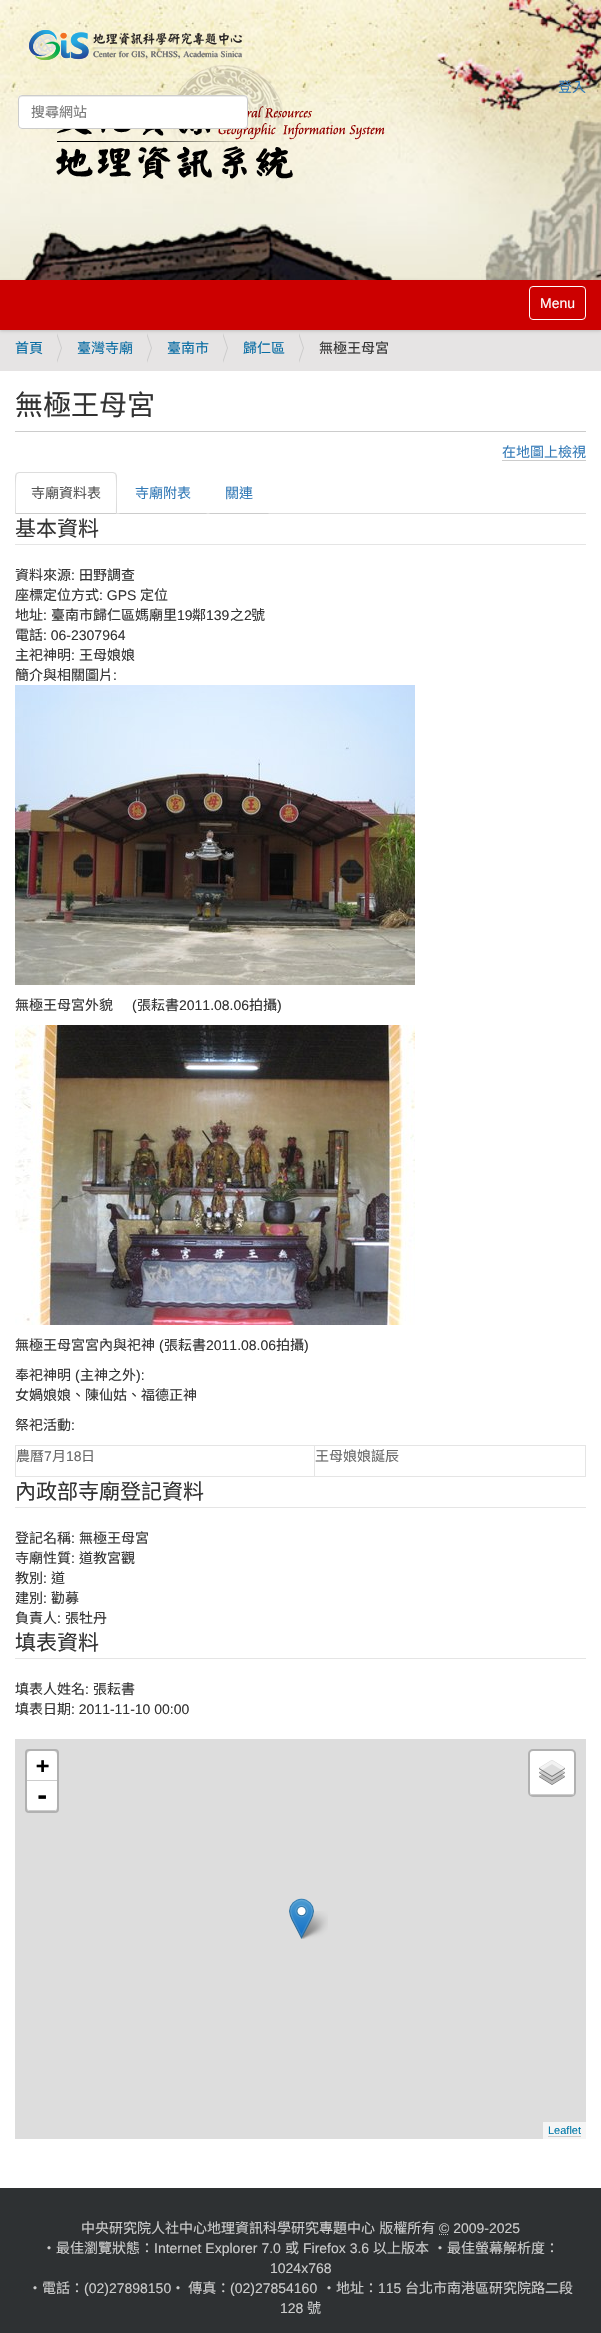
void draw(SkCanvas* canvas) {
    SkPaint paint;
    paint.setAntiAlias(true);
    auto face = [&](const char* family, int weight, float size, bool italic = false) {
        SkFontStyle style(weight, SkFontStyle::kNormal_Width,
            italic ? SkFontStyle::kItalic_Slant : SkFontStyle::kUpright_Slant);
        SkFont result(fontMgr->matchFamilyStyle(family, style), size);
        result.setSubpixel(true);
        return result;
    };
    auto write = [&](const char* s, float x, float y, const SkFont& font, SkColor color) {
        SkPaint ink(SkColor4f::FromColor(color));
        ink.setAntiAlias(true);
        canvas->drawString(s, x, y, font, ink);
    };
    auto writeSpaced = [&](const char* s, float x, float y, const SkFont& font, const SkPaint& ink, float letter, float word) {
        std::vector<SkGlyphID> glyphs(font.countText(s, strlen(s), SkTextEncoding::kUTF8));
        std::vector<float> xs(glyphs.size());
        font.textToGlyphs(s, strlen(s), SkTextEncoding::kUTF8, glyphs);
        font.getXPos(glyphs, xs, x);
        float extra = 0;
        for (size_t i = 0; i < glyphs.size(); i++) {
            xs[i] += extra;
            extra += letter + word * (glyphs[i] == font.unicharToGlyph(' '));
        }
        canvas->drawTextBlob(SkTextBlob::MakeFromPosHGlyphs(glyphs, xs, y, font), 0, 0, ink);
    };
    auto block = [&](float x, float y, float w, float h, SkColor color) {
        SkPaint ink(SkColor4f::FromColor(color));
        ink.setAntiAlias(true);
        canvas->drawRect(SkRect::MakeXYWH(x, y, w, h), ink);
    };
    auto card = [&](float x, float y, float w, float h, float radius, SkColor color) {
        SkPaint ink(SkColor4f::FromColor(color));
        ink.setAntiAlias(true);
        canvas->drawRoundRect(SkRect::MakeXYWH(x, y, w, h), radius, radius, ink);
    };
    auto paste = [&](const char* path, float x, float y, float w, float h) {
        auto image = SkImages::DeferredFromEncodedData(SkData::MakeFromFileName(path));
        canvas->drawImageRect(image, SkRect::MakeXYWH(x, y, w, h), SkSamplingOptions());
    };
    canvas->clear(SK_ColorWHITE);
    paste("pic1.png", 0, 0, 601, 280);
    paste("pic2.png", 29, 30, 213, 30);
    paste("pic3.png", 56, 65, 329, 114);
    auto kFont1 = face("Noto Sans CJK TC", 400, 14);
    write("登入", 558, 92, kFont1, SkColorSetRGB(51, 122, 183));
    card(18, 95, 230, 34, 4, SK_ColorWHITE);
    paint.setColor(SkColorSetRGB(236, 236, 236));
    canvas->drawPath(SkPathBuilder().moveTo(22, 97).lineTo(244, 97).cubicTo(246, 97, 247, 98, 247, 100).lineTo(247, 99).cubicTo(247, 97, 246, 96, 244, 96).lineTo(22, 96).cubicTo(20, 96, 19, 97, 19, 99).lineTo(19, 100).cubicTo(19, 98, 20, 97, 22, 97).close().detach(), paint);
    paint.setStyle(SkPaint::kStroke_Style);
    paint.setStrokeWidth(1);
    paint.setColor(SkColorSetRGB(204, 204, 204));
    canvas->drawRoundRect(SkRect::MakeXYWH(18.5f, 95.5f, 229, 33), 3.5f, 3.5f, paint);
    write("搜尋網站", 31, 117, kFont1, SkColorSetRGB(119, 119, 119));
    block(0, 330, 601, 41, SkColorSetRGB(230, 228, 228));
    paint.setStyle(SkPaint::kFill_Style);
    paint.setColor(SkColorSetARGB(43, 0, 0, 0));
    paint.setMaskFilter(SkMaskFilter::MakeBlur(kNormal_SkBlurStyle, 1.5f));
    canvas->drawRect(SkRect::MakeXYWH(0, 281, 601, 50), paint);
    paint.setMaskFilter(nullptr);
    block(0, 280, 601, 50, SkColorSetRGB(204, 0, 0));
    paint.setStyle(SkPaint::kStroke_Style);
    paint.setColor(SK_ColorWHITE);
    canvas->drawRoundRect(SkRect::MakeXYWH(529.5f, 286.5f, 56, 33), 3.5f, 3.5f, paint);
    auto kFont2 = face("Liberation Sans", 400, 14);
    write("Menu", 540, 308, kFont2, SK_ColorWHITE);
    write("首頁", 15, 353, kFont1, SkColorSetRGB(8, 108, 163));
    paint.setStyle(SkPaint::kFill_Style);
    paint.setColor(SkColorSetRGB(204, 204, 204));
    canvas->drawPath(SkPathBuilder().moveTo(57, 363).lineTo(57, 333).lineTo(62, 348).close().detach(), paint);
    paint.setColor(SkColorSetRGB(230, 228, 228));
    canvas->drawPath(SkPathBuilder().moveTo(56, 363).lineTo(56, 333).lineTo(61, 348).close().detach(), paint);
    write("臺灣寺廟", 77, 353, kFont1, SkColorSetRGB(8, 108, 163));
    paint.setColor(SkColorSetRGB(204, 204, 204));
    canvas->drawPath(SkPathBuilder().moveTo(147, 363).lineTo(147, 333).lineTo(152, 348).close().detach(), paint);
    paint.setColor(SkColorSetRGB(230, 228, 228));
    canvas->drawPath(SkPathBuilder().moveTo(146, 363).lineTo(146, 333).lineTo(151, 348).close().detach(), paint);
    write("臺南市", 167, 353, kFont1, SkColorSetRGB(8, 108, 163));
    paint.setColor(SkColorSetRGB(204, 204, 204));
    canvas->drawPath(SkPathBuilder().moveTo(223, 363).lineTo(223, 333).lineTo(228, 348).close().detach(), paint);
    paint.setColor(SkColorSetRGB(230, 228, 228));
    canvas->drawPath(SkPathBuilder().moveTo(222, 363).lineTo(222, 333).lineTo(227, 348).close().detach(), paint);
    write("歸仁區", 243, 353, kFont1, SkColorSetRGB(8, 108, 163));
    paint.setColor(SkColorSetRGB(204, 204, 204));
    canvas->drawPath(SkPathBuilder().moveTo(299, 363).lineTo(299, 333).lineTo(304, 348).close().detach(), paint);
    paint.setColor(SkColorSetRGB(230, 228, 228));
    canvas->drawPath(SkPathBuilder().moveTo(298, 363).lineTo(298, 333).lineTo(303, 348).close().detach(), paint);
    write("無極王母宮", 319, 353, kFont1, SkColorSetRGB(51, 51, 51));
    block(15, 431, 571, 1, SkColorSetRGB(204, 204, 204));
    auto kFont3 = face("Noto Sans CJK TC", 400, 28);
    write("無極王母宮", 15, 415, kFont3, SkColorSetRGB(51, 51, 51));
    write("在地圖上檢視", 502, 457, kFont1, SkColorSetRGB(51, 122, 183));
    block(502, 460, 84, 1, SkColorSetRGB(204, 204, 204));
    block(117, 513, 469, 1, SkColorSetRGB(221, 221, 221));
    paint.setColor(SkColorSetRGB(221, 221, 221));
    canvas->drawPath(SkPathBuilder().moveTo(19, 472).lineTo(16, 473).lineTo(17, 474).lineTo(19, 473).lineTo(113, 473).lineTo(115, 474).lineTo(116, 473).lineTo(113, 472).close().detach(), paint);
    canvas->drawPath(SkPathBuilder().moveTo(117, 514).lineTo(117, 476).cubicTo(117, 475, 116, 474, 116, 473).lineTo(115, 474).cubicTo(117, 476, 116, 508, 116, 513).close().detach(), paint);
    paint.setColor(SkColorSetRGB(204, 204, 204));
    canvas->drawPath(SkPathBuilder().moveTo(117, 514).lineTo(116, 513).lineTo(16, 513).lineTo(15, 514).close().detach(), paint);
    paint.setColor(SkColorSetRGB(221, 221, 221));
    canvas->drawPath(SkPathBuilder().moveTo(15, 514).lineTo(16, 513).cubicTo(16, 508, 15, 476, 17, 474).lineTo(16, 473).lineTo(15, 476).close().detach(), paint);
    write("寺廟資料表", 31, 498, kFont1, SkColorSetRGB(85, 85, 85));
    paint.setColor(SkColorSetRGB(204, 204, 204));
    canvas->drawPath(SkPathBuilder().moveTo(207, 514).lineTo(206, 513).lineTo(120, 513).lineTo(119, 514).close().detach(), paint);
    write("寺廟附表", 135, 498, kFont1, SkColorSetRGB(51, 122, 183));
    canvas->drawPath(SkPathBuilder().moveTo(269, 514).lineTo(268, 513).lineTo(210, 513).lineTo(209, 514).close().detach(), paint);
    write("關連", 225, 498, kFont1, SkColorSetRGB(51, 122, 183));
    block(15, 544, 571, 1, SkColorSetRGB(229, 229, 229));
    auto kFont4 = face("Noto Sans CJK TC", 400, 21);
    write("基本資料", 15, 536, kFont4, SkColorSetRGB(51, 51, 51));
    write("資料來源", 15, 580, kFont1, SkColorSetRGB(51, 51, 51));
    write(":", 71, 580, kFont2, SkColorSetRGB(51, 51, 51));
    write("田野調查", 79, 580, kFont1, SkColorSetRGB(51, 51, 51));
    write("座標定位方式", 15, 600, kFont1, SkColorSetRGB(51, 51, 51));
    write(": GPS", 99, 600, kFont2, SkColorSetRGB(51, 51, 51));
    write("定位", 140, 600, kFont1, SkColorSetRGB(51, 51, 51));
    write("地址", 15, 620, kFont1, SkColorSetRGB(51, 51, 51));
    write(":", 43, 620, kFont2, SkColorSetRGB(51, 51, 51));
    write("臺南市歸仁區媽廟里", 51, 620, kFont1, SkColorSetRGB(51, 51, 51));
    write("19", 177, 620, kFont2, SkColorSetRGB(51, 51, 51));
    write("鄰", 192, 620, kFont1, SkColorSetRGB(51, 51, 51));
    write("139", 206, 620, kFont2, SkColorSetRGB(51, 51, 51));
    write("之", 230, 620, kFont1, SkColorSetRGB(51, 51, 51));
    write("2", 244, 620, kFont2, SkColorSetRGB(51, 51, 51));
    write("號", 251, 620, kFont1, SkColorSetRGB(51, 51, 51));
    write("電話", 15, 640, kFont1, SkColorSetRGB(51, 51, 51));
    write(": 06-2307964", 43, 640, kFont2, SkColorSetRGB(51, 51, 51));
    write("主祀神明", 15, 660, kFont1, SkColorSetRGB(51, 51, 51));
    write(":", 71, 660, kFont2, SkColorSetRGB(51, 51, 51));
    write("王母娘娘", 79, 660, kFont1, SkColorSetRGB(51, 51, 51));
    write("簡介與相關圖片", 15, 680, kFont1, SkColorSetRGB(51, 51, 51));
    write(":", 113, 680, kFont2, SkColorSetRGB(51, 51, 51));
    paste("pic4.png", 15, 685, 400, 300);
    write("無極王母宮外貌", 15, 1010, kFont1, SkColorSetRGB(51, 51, 51));
    write("(", 132, 1010, kFont2, SkColorSetRGB(51, 51, 51));
    write("張耘書", 137, 1010, kFont1, SkColorSetRGB(51, 51, 51));
    write("2011.08.06", 179, 1010, kFont2, SkColorSetRGB(51, 51, 51));
    write("拍攝", 249, 1010, kFont1, SkColorSetRGB(51, 51, 51));
    write(")", 277, 1010, kFont2, SkColorSetRGB(51, 51, 51));
    paste("pic5.png", 15, 1025, 400, 300);
    write("無極王母宮宮內與祀神", 15, 1350, kFont1, SkColorSetRGB(51, 51, 51));
    write("(", 159, 1350, kFont2, SkColorSetRGB(51, 51, 51));
    write("張耘書", 164, 1350, kFont1, SkColorSetRGB(51, 51, 51));
    write("2011.08.06", 206, 1350, kFont2, SkColorSetRGB(51, 51, 51));
    write("拍攝", 276, 1350, kFont1, SkColorSetRGB(51, 51, 51));
    write(")", 304, 1350, kFont2, SkColorSetRGB(51, 51, 51));
    write("奉祀神明", 15, 1380, kFont1, SkColorSetRGB(51, 51, 51));
    write("(", 75, 1380, kFont2, SkColorSetRGB(51, 51, 51));
    write("主神之外", 80, 1380, kFont1, SkColorSetRGB(51, 51, 51));
    write("):", 136, 1380, kFont2, SkColorSetRGB(51, 51, 51));
    write("女媧娘娘、陳仙姑、福德正神", 15, 1400, kFont1, SkColorSetRGB(51, 51, 51));
    write("祭祀活動", 15, 1430, kFont1, SkColorSetRGB(51, 51, 51));
    write(":", 71, 1430, kFont2, SkColorSetRGB(51, 51, 51));
    block(15, 1445, 571, 1, SkColorSetRGB(229, 229, 229));
    block(585, 1445, 1, 32, SkColorSetRGB(229, 229, 229));
    block(15, 1476, 571, 1, SkColorSetRGB(229, 229, 229));
    block(15, 1445, 1, 32, SkColorSetRGB(229, 229, 229));
    write("農曆", 16, 1461, kFont1, SkColorSetRGB(105, 105, 105));
    write("7", 44, 1461, kFont2, SkColorSetRGB(105, 105, 105));
    write("月", 52, 1461, kFont1, SkColorSetRGB(105, 105, 105));
    write("18", 66, 1461, kFont2, SkColorSetRGB(105, 105, 105));
    write("日", 81, 1461, kFont1, SkColorSetRGB(105, 105, 105));
    block(314, 1445, 1, 32, SkColorSetRGB(229, 229, 229));
    write("王母娘娘誕辰", 315, 1461, kFont1, SkColorSetRGB(105, 105, 105));
    block(15, 1507, 571, 1, SkColorSetRGB(229, 229, 229));
    write("內政部寺廟登記資料", 15, 1499, kFont4, SkColorSetRGB(51, 51, 51));
    write("登記名稱", 15, 1543, kFont1, SkColorSetRGB(51, 51, 51));
    write(":", 71, 1543, kFont2, SkColorSetRGB(51, 51, 51));
    write("無極王母宮", 79, 1543, kFont1, SkColorSetRGB(51, 51, 51));
    write("寺廟性質", 15, 1563, kFont1, SkColorSetRGB(51, 51, 51));
    write(":", 71, 1563, kFont2, SkColorSetRGB(51, 51, 51));
    write("道教宮觀", 79, 1563, kFont1, SkColorSetRGB(51, 51, 51));
    write("教別", 15, 1583, kFont1, SkColorSetRGB(51, 51, 51));
    write(":", 43, 1583, kFont2, SkColorSetRGB(51, 51, 51));
    write("道", 51, 1583, kFont1, SkColorSetRGB(51, 51, 51));
    write("建別", 15, 1603, kFont1, SkColorSetRGB(51, 51, 51));
    write(":", 43, 1603, kFont2, SkColorSetRGB(51, 51, 51));
    write("勸募", 51, 1603, kFont1, SkColorSetRGB(51, 51, 51));
    write("負責人", 15, 1623, kFont1, SkColorSetRGB(51, 51, 51));
    write(":", 57, 1623, kFont2, SkColorSetRGB(51, 51, 51));
    write("張牡丹", 65, 1623, kFont1, SkColorSetRGB(51, 51, 51));
    block(15, 1658, 571, 1, SkColorSetRGB(229, 229, 229));
    write("填表資料", 15, 1650, kFont4, SkColorSetRGB(51, 51, 51));
    write("填表人姓名", 15, 1694, kFont1, SkColorSetRGB(51, 51, 51));
    write(":", 85, 1694, kFont2, SkColorSetRGB(51, 51, 51));
    write("張耘書", 93, 1694, kFont1, SkColorSetRGB(51, 51, 51));
    write("填表日期", 15, 1714, kFont1, SkColorSetRGB(51, 51, 51));
    write(": 2011-11-10 00:00", 71, 1714, kFont2, SkColorSetRGB(51, 51, 51));
    block(15, 1739, 571, 400, SkColorSetRGB(221, 221, 221));
    paint.setStyle(SkPaint::kStroke_Style);
    paint.setStrokeWidth(2);
    paint.setColor(SkColorSetRGB(177, 177, 177));
    canvas->drawRoundRect(SkRect::MakeXYWH(26, 1750, 32, 62), 3, 3, paint);
    paint.setStyle(SkPaint::kFill_Style);
    paint.setColor(SK_ColorWHITE);
    canvas->drawPath(SkPathBuilder().moveTo(31, 1751).lineTo(53, 1751).cubicTo(55, 1751, 57, 1753, 57, 1755).lineTo(57, 1781).lineTo(27, 1781).lineTo(27, 1755).cubicTo(27, 1753, 29, 1751, 31, 1751).close().detach(), paint);
    block(27, 1780, 30, 1, SkColorSetRGB(204, 204, 204));
    auto kFont5 = face("DejaVu Sans Mono", 700, 22);
    write("+", 36, 1773, kFont5, SK_ColorBLACK);
    canvas->drawPath(SkPathBuilder().moveTo(27, 1781).lineTo(57, 1781).lineTo(57, 1807).cubicTo(57, 1809, 55, 1811, 53, 1811).lineTo(31, 1811).cubicTo(29, 1811, 27, 1809, 27, 1807).close().detach(), paint);
    block(29, 1810, 26, 1, SkColorSetRGB(204, 204, 204));
    auto kFont6 = face("DejaVu Sans Mono", 700, 24);
    write("-", 35, 1804, kFont6, SK_ColorBLACK);
    canvas->drawRoundRect(SkRect::MakeXYWH(529, 1750, 46, 46), 4, 4, paint);
    paint.setStyle(SkPaint::kStroke_Style);
    paint.setColor(SkColorSetRGB(177, 177, 177));
    canvas->drawRoundRect(SkRect::MakeXYWH(529, 1750, 46, 46), 4, 4, paint);
    paste("pic6.png", 539, 1760, 26, 25);
    block(530, 1794, 44, 1, SkColorSetRGB(204, 204, 204));
    block(543, 2122, 43, 17, SkColorSetRGB(245, 245, 245));
    auto kFont7 = face("Liberation Sans", 400, 11);
    write("Leaflet", 548, 2134, kFont7, SkColorSetRGB(0, 120, 168));
    block(548, 2136, 33, 1, SkColorSetRGB(204, 204, 204));
    paste("pic8.png", 299, 1911, 29, 28);
    paste("pic7.png", 289, 1898, 25, 41);
    block(0, 2188, 601, 145, SkColorSetRGB(46, 49, 51));
    paint.setStyle(SkPaint::kFill_Style);
    paint.setColor(SkColorSetRGB(204, 204, 204));
    writeSpaced("中央研究院人社中心地理資訊科學研究專題中心 版權所有", 81, 2233, kFont1, paint, 0, 1);
    write("© 2009-2025", 439, 2233, kFont2, SkColorSetRGB(204, 204, 204));
    paint.setStyle(SkPaint::kStroke_Style);
    paint.setStrokeWidth(1);
    paint.setPathEffect(SkDashPathEffect::Make({{1, 1}}, 0));
    canvas->drawPath(SkPathBuilder().moveTo(439, 2234.5f).lineTo(449, 2234.5f).detach(), paint);
    paint.setPathEffect(nullptr);
    write("‧最佳瀏覽狀態：", 42, 2253, kFont1, SkColorSetRGB(204, 204, 204));
    write("Internet Explorer 7.0", 154, 2253, kFont2, SkColorSetRGB(204, 204, 204));
    write("或", 285, 2253, kFont1, SkColorSetRGB(204, 204, 204));
    write("Firefox 3.6", 303, 2253, kFont2, SkColorSetRGB(204, 204, 204));
    write("以上版本", 373, 2253, kFont1, SkColorSetRGB(204, 204, 204));
    write("‧最佳螢幕解析度：", 433, 2253, kFont1, SkColorSetRGB(204, 204, 204));
    write("1024x768", 270, 2273, kFont2, SkColorSetRGB(204, 204, 204));
    write("‧電話：", 28, 2293, kFont1, SkColorSetRGB(204, 204, 204));
    write("(02)27898150", 84, 2293, kFont2, SkColorSetRGB(204, 204, 204));
    write("‧ 傳真：", 171, 2293, kFont1, SkColorSetRGB(204, 204, 204));
    write("(02)27854160", 230, 2293, kFont2, SkColorSetRGB(204, 204, 204));
    write("‧地址：", 322, 2293, kFont1, SkColorSetRGB(204, 204, 204));
    write("115", 378, 2293, kFont2, SkColorSetRGB(204, 204, 204));
    write("台北市南港區研究院路二段", 405, 2293, kFont1, SkColorSetRGB(204, 204, 204));
    write("128", 280, 2313, kFont2, SkColorSetRGB(204, 204, 204));
    write("號", 307, 2313, kFont1, SkColorSetRGB(204, 204, 204));
}
